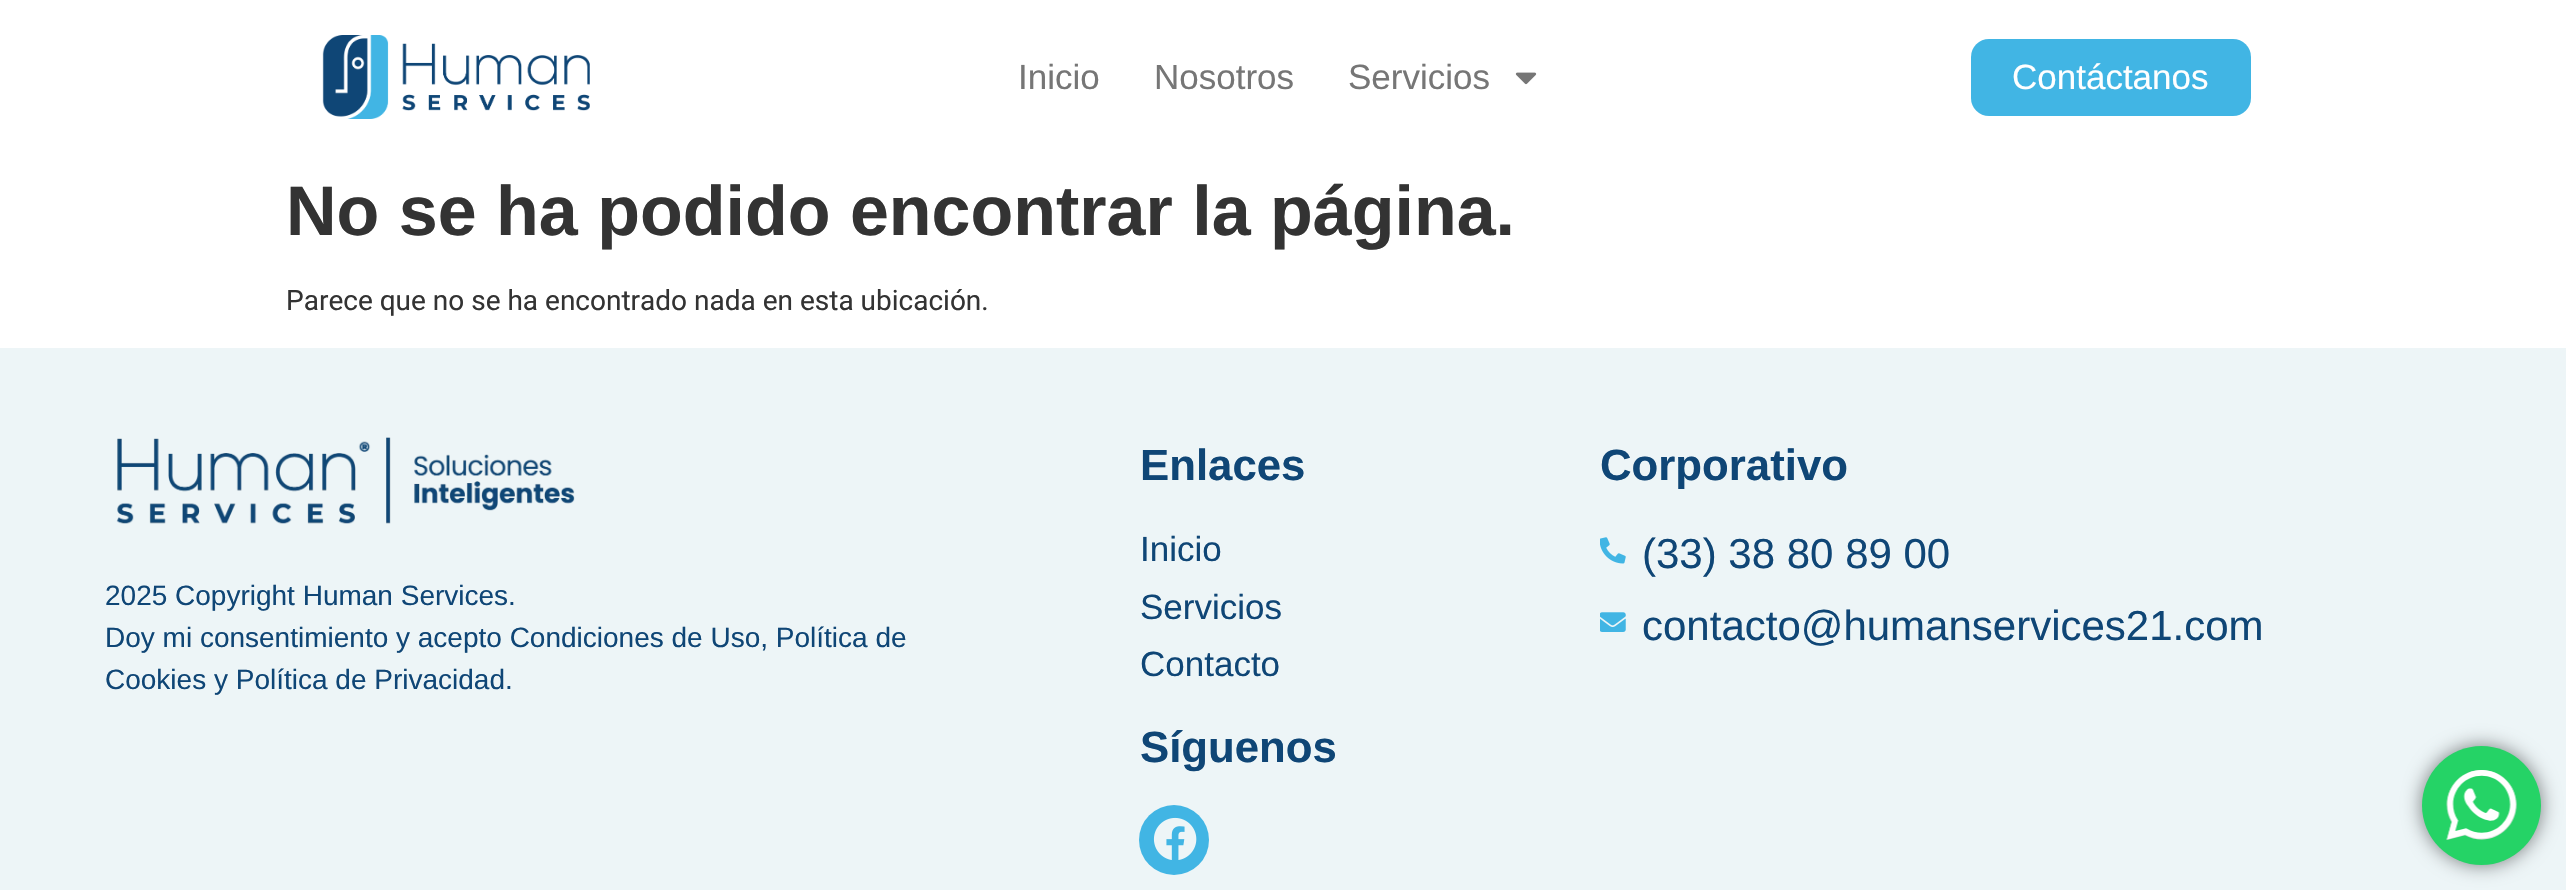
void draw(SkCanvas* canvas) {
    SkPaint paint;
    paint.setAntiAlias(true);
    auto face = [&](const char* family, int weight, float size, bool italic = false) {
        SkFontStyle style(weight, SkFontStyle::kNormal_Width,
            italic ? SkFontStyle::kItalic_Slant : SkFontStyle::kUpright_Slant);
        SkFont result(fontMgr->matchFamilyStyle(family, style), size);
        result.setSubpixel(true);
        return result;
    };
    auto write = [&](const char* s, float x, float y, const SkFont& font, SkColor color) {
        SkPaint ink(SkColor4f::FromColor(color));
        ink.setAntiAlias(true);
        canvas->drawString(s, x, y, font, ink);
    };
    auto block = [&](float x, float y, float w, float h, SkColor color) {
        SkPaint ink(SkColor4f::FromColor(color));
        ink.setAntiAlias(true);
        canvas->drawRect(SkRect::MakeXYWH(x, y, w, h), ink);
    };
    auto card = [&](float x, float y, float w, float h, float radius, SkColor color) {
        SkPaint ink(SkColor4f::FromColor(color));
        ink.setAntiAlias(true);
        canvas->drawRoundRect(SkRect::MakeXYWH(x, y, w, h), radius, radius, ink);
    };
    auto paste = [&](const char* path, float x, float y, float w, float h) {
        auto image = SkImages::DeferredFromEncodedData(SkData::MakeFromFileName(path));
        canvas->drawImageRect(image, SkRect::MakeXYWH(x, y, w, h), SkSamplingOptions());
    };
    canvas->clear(SK_ColorWHITE);
    paste("pic1.png", 322, 35, 268, 84);
    auto kFont1 = face("Liberation Sans", 400, 35);
    write("Inicio", 1018, 89, kFont1, SkColorSetRGB(118, 118, 118));
    write("Nosotros", 1154, 89, kFont1, SkColorSetRGB(118, 118, 118));
    write("Servicios", 1348, 89, kFont1, SkColorSetRGB(118, 118, 118));
    paste("pic2.png", 1515, 72, 22, 13);
    card(1971, 39, 280, 77, 18, SkColorSetRGB(65, 181, 228));
    write("Contáctanos", 2012, 89, kFont1, SK_ColorWHITE);
    auto kFont2 = face("Liberation Sans", 700, 70);
    write("No se ha podido encontrar la página.", 286, 235, kFont2, SkColorSetRGB(51, 51, 51));
    auto kFont3 = face("Roboto", 400, 28);
    write("Parece que no se ha encontrado nada en esta ubicación.", 286, 310, kFont3, SkColorSetRGB(51, 51, 51));
    block(0, 348, 2566, 542, SkColorSetRGB(237, 245, 247));
    paste("pic3.png", 116, 437, 459, 87);
    auto kFont4 = face("Liberation Sans", 400, 28);
    write("2025 Copyright Human Services.", 105, 605, kFont4, SkColorSetRGB(15, 70, 118));
    write("Doy mi consentimiento y acepto Condiciones de Uso, Política de", 105, 647, kFont4, SkColorSetRGB(15, 70, 118));
    write("Cookies y Política de Privacidad.", 105, 689, kFont4, SkColorSetRGB(15, 70, 118));
    auto kFont5 = face("Liberation Sans", 700, 43.75f);
    write("Enlaces", 1140, 480, kFont5, SkColorSetRGB(15, 70, 118));
    write("Inicio", 1140, 561, kFont1, SkColorSetRGB(15, 70, 118));
    write("Servicios", 1140, 619, kFont1, SkColorSetRGB(15, 70, 118));
    write("Contacto", 1140, 676, kFont1, SkColorSetRGB(15, 70, 118));
    write("Síguenos", 1140, 762, kFont5, SkColorSetRGB(15, 70, 118));
    paint.setColor(SkColorSetRGB(65, 181, 228));
    canvas->drawCircle(1174, 840, 35, paint);
    paste("pic4.png", 1153, 817, 44, 43);
    write("Corporativo", 1600, 480, kFont5, SkColorSetRGB(15, 70, 118));
    paste("pic5.png", 1600, 537, 26, 27);
    auto kFont6 = face("Liberation Sans", 400, 42);
    write("(33) 38 80 89 00", 1642, 568, kFont6, SkColorSetRGB(15, 70, 118));
    paste("pic6.png", 1600, 612, 26, 20);
    write("contacto@humanservices21.com", 1642, 640, kFont6, SkColorSetRGB(15, 70, 118));
    paint.setColor(SkColorSetARGB(128, 0, 0, 0));
    paint.setMaskFilter(SkMaskFilter::MakeBlur(kNormal_SkBlurStyle, 9.5f));
    canvas->drawRoundRect(SkRect::MakeXYWH(2422, 746, 119, 119), 59.5f, 59.5f, paint);
    paint.setMaskFilter(nullptr);
    paint.setColor(SkColorSetRGB(37, 211, 102));
    canvas->drawCircle(2481.5f, 805.5f, 59.5f, paint);
    paste("pic7.png", 2446, 770, 71, 70);
}
